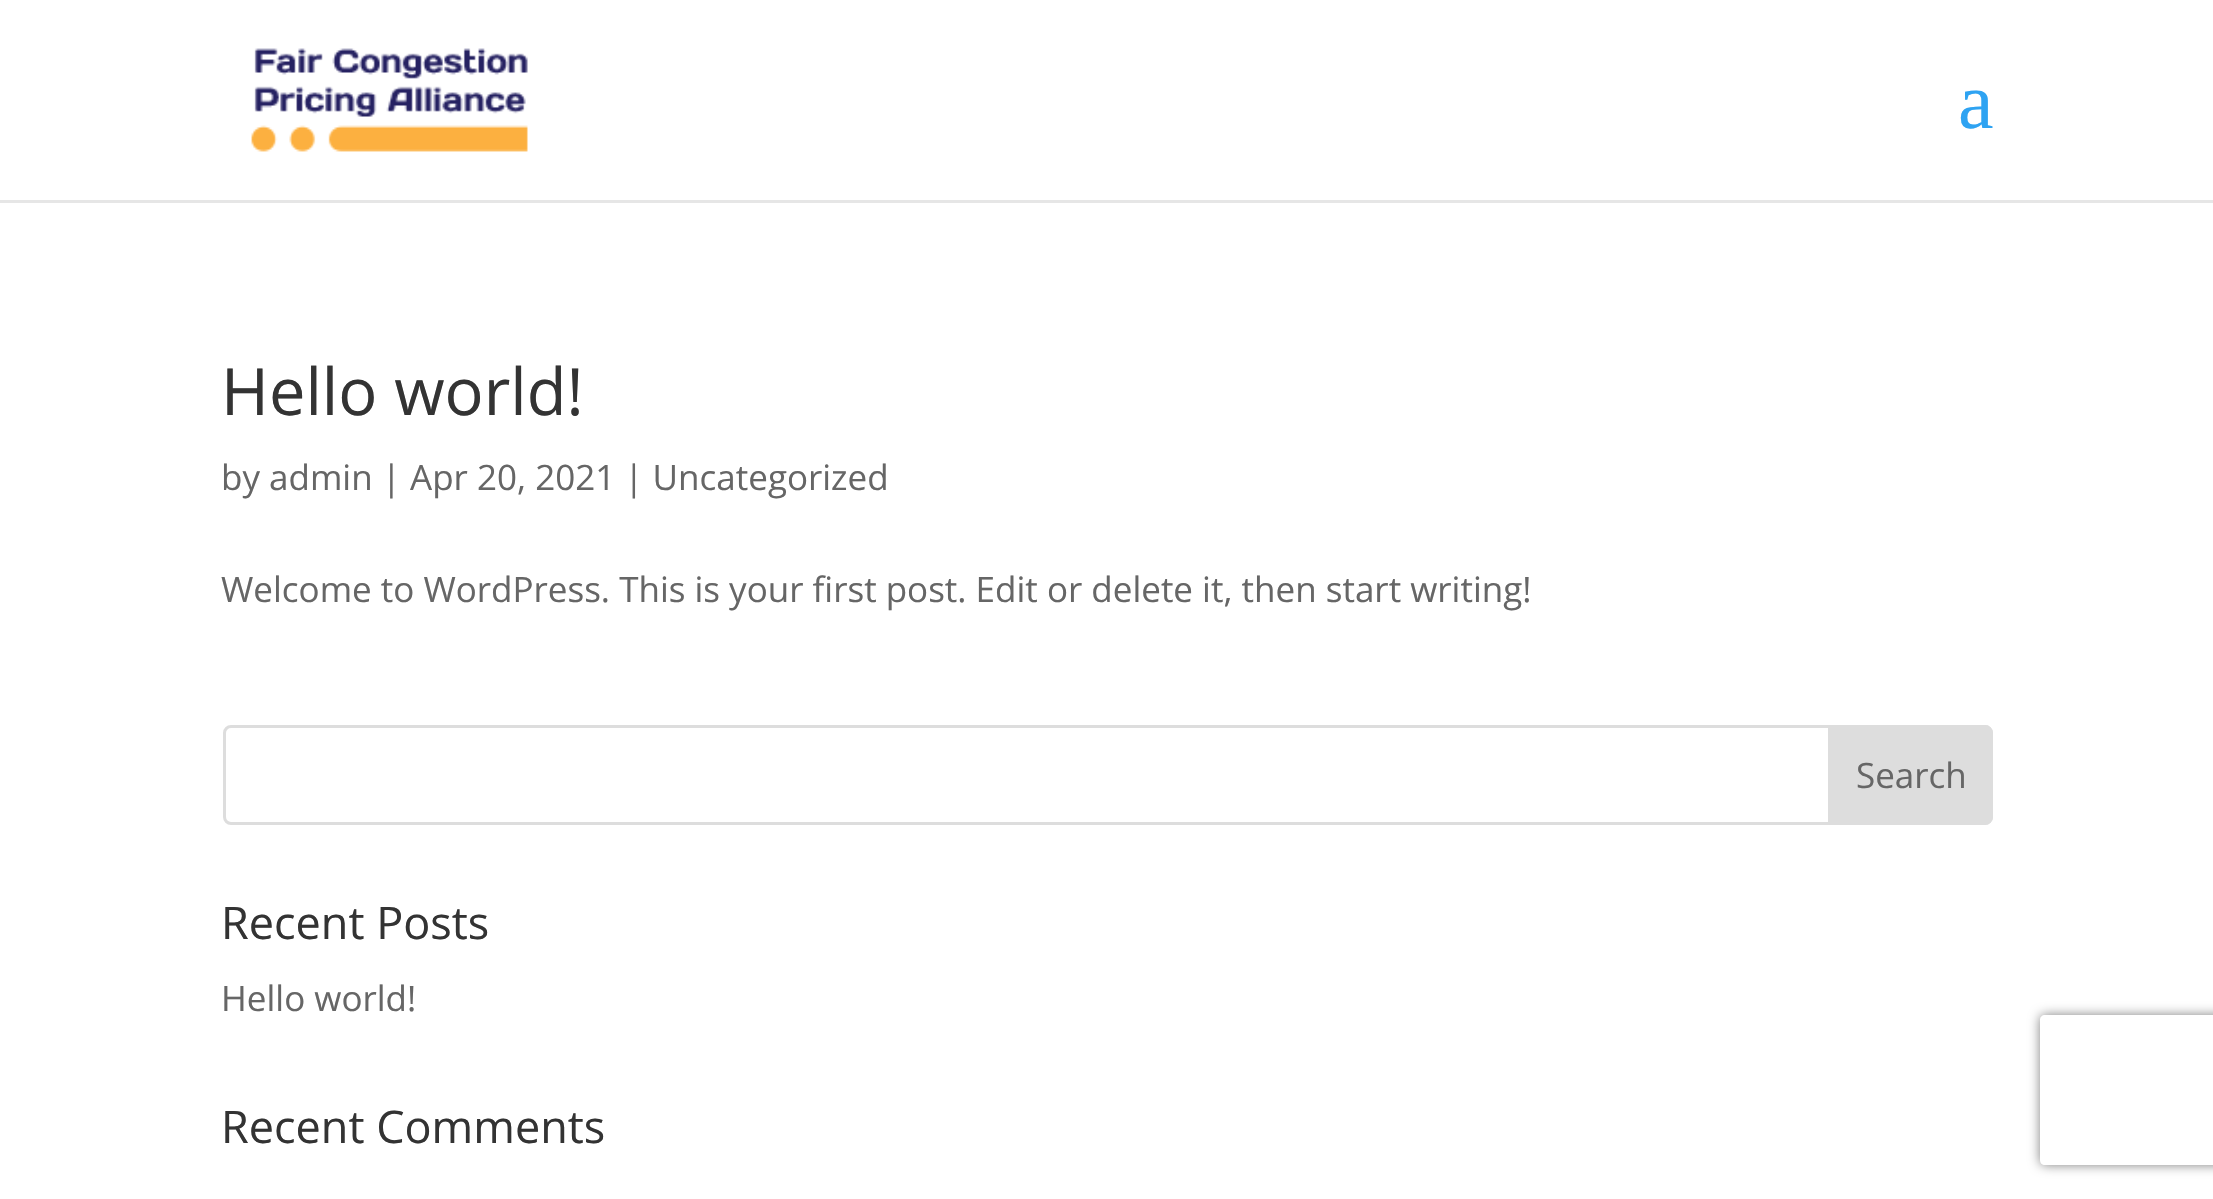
void draw(SkCanvas* canvas) {
    SkPaint paint;
    paint.setAntiAlias(true);
    auto face = [&](const char* family, int weight, float size, bool italic = false) {
        SkFontStyle style(weight, SkFontStyle::kNormal_Width,
            italic ? SkFontStyle::kItalic_Slant : SkFontStyle::kUpright_Slant);
        SkFont result(fontMgr->matchFamilyStyle(family, style), size);
        result.setSubpixel(true);
        return result;
    };
    auto write = [&](const char* s, float x, float y, const SkFont& font, SkColor color) {
        SkPaint ink(SkColor4f::FromColor(color));
        ink.setAntiAlias(true);
        canvas->drawString(s, x, y, font, ink);
    };
    auto block = [&](float x, float y, float w, float h, SkColor color) {
        SkPaint ink(SkColor4f::FromColor(color));
        ink.setAntiAlias(true);
        canvas->drawRect(SkRect::MakeXYWH(x, y, w, h), ink);
    };
    auto paste = [&](const char* path, float x, float y, float w, float h) {
        auto image = SkImages::DeferredFromEncodedData(SkData::MakeFromFileName(path));
        canvas->drawImageRect(image, SkRect::MakeXYWH(x, y, w, h), SkSamplingOptions());
    };
    canvas->clear(SK_ColorWHITE);
    block(0, 200, 2213, 3, SkColorSetRGB(230, 230, 230));
    paste("pic1.png", 251, 48, 277, 104);
    auto kFont1 = face("Liberation Serif", 400, 80);
    write("a", 1958, 128, kFont1, SkColorSetRGB(46, 163, 242));
    auto kFont2 = face("Open Sans", 400, 65);
    write("Hello world!", 221, 415, kFont2, SkColorSetRGB(51, 51, 51));
    auto kFont3 = face("Open Sans", 400, 35);
    write("by admin | Apr 20, 2021 | Uncategorized", 221, 490, kFont3, SkColorSetRGB(102, 102, 102));
    write("Welcome to WordPress. This is your first post. Edit or delete it, then start writing!", 221, 602, kFont3, SkColorSetRGB(102, 102, 102));
    paint.setStyle(SkPaint::kStroke_Style);
    paint.setStrokeWidth(3);
    paint.setColor(SkColorSetRGB(221, 221, 221));
    canvas->drawRoundRect(SkRect::MakeXYWH(224.5f, 726.5f, 1767, 97), 6.5f, 6.5f, paint);
    paint.setStyle(SkPaint::kFill_Style);
    canvas->drawPath(SkPathBuilder().moveTo(1829.5f, 726.5f).lineTo(1985, 726.5f).cubicTo(1988.5f, 726.5f, 1991.5f, 729.5f, 1991.5f, 733).lineTo(1991.5f, 817).cubicTo(1991.5f, 820.5f, 1988.5f, 823.5f, 1985, 823.5f).lineTo(1829.5f, 823.5f).close().detach(), paint);
    paint.setStyle(SkPaint::kStroke_Style);
    canvas->drawPath(SkPathBuilder().moveTo(1829.5f, 726.5f).lineTo(1985, 726.5f).cubicTo(1988.5f, 726.5f, 1991.5f, 729.5f, 1991.5f, 733).lineTo(1991.5f, 817).cubicTo(1991.5f, 820.5f, 1988.5f, 823.5f, 1985, 823.5f).lineTo(1829.5f, 823.5f).close().detach(), paint);
    write("Search", 1856, 788, kFont3, SkColorSetRGB(102, 102, 102));
    auto kFont4 = face("Open Sans", 400, 45);
    write("Recent Posts", 221, 939, kFont4, SkColorSetRGB(51, 51, 51));
    write("Hello world!", 221, 1011, kFont3, SkColorSetRGB(102, 102, 102));
    write("Recent Comments", 221, 1143, kFont4, SkColorSetRGB(51, 51, 51));
    canvas->save();
    canvas->clipPath(SkPathBuilder(SkPathFillType::kEvenOdd).moveTo(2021, 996).lineTo(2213, 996).lineTo(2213, 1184).lineTo(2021, 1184).close().moveTo(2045, 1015).lineTo(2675, 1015).cubicTo(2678, 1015, 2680, 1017, 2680, 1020).lineTo(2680, 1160).cubicTo(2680, 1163, 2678, 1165, 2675, 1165).lineTo(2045, 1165).cubicTo(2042, 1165, 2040, 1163, 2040, 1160).lineTo(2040, 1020).cubicTo(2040, 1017, 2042, 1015, 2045, 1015).close().detach(), true);
    paint.setStyle(SkPaint::kFill_Style);
    paint.setColor(SkColorSetRGB(128, 128, 128));
    paint.setMaskFilter(SkMaskFilter::MakeBlur(kNormal_SkBlurStyle, 6));
    canvas->drawRoundRect(SkRect::MakeXYWH(2040, 1015, 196, 150), 5, 5, paint);
    paint.setMaskFilter(nullptr);
    canvas->restore();
}
